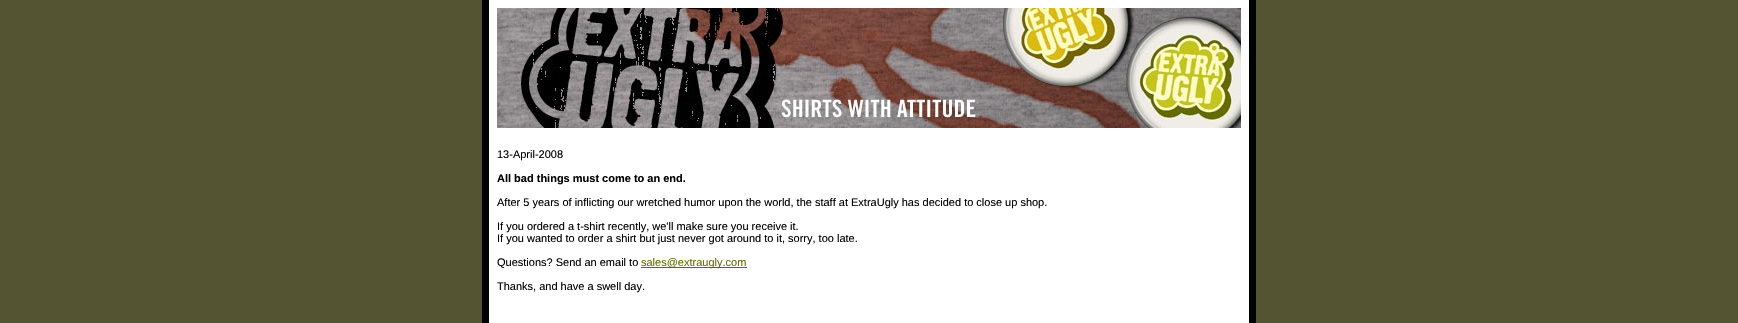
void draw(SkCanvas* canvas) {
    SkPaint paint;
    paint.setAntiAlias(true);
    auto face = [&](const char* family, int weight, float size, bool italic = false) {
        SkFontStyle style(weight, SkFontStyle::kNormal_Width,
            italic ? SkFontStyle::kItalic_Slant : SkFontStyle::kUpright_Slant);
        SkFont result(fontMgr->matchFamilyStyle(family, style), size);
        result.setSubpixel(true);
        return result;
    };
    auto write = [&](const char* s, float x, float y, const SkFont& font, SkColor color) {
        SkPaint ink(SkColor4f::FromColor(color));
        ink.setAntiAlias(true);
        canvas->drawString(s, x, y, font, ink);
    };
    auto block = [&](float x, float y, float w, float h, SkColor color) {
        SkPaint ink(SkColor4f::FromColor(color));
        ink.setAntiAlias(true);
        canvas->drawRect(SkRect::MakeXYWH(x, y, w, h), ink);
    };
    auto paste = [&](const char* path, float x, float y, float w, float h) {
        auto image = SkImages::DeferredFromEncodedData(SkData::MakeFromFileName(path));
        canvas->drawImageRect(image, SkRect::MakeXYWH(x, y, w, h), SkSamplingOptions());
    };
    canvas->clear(SkColorSetRGB(84, 84, 50));
    block(489, 0, 760, 323, SK_ColorWHITE);
    block(1249, 0, 7, 323, SK_ColorBLACK);
    block(482, 0, 7, 323, SK_ColorBLACK);
    paste("pic1.png", 497, 8, 744, 120);
    auto kFont1 = face("Liberation Sans", 400, 11);
    write("13-April-2008", 497, 158, kFont1, SK_ColorBLACK);
    auto kFont2 = face("Liberation Sans", 700, 11);
    write("All bad things must come to an end.", 497, 182, kFont2, SK_ColorBLACK);
    write("After 5 years of inflicting our wretched humor upon the world, the staff at ExtraUgly has decided to close up shop.", 497, 206, kFont1, SK_ColorBLACK);
    write("If you ordered a t-shirt recently, we'll make sure you receive it.", 497, 230, kFont1, SK_ColorBLACK);
    write("If you wanted to order a shirt but just never got around to it, sorry, too late.", 497, 242, kFont1, SK_ColorBLACK);
    write("Questions? Send an email to", 497, 266, kFont1, SK_ColorBLACK);
    block(641, 267, 106, 1, SkColorSetRGB(102, 107, 0));
    write("sales@extraugly.com", 641, 266, kFont1, SkColorSetRGB(102, 107, 0));
    write("Thanks, and have a swell day.", 497, 290, kFont1, SK_ColorBLACK);
}
